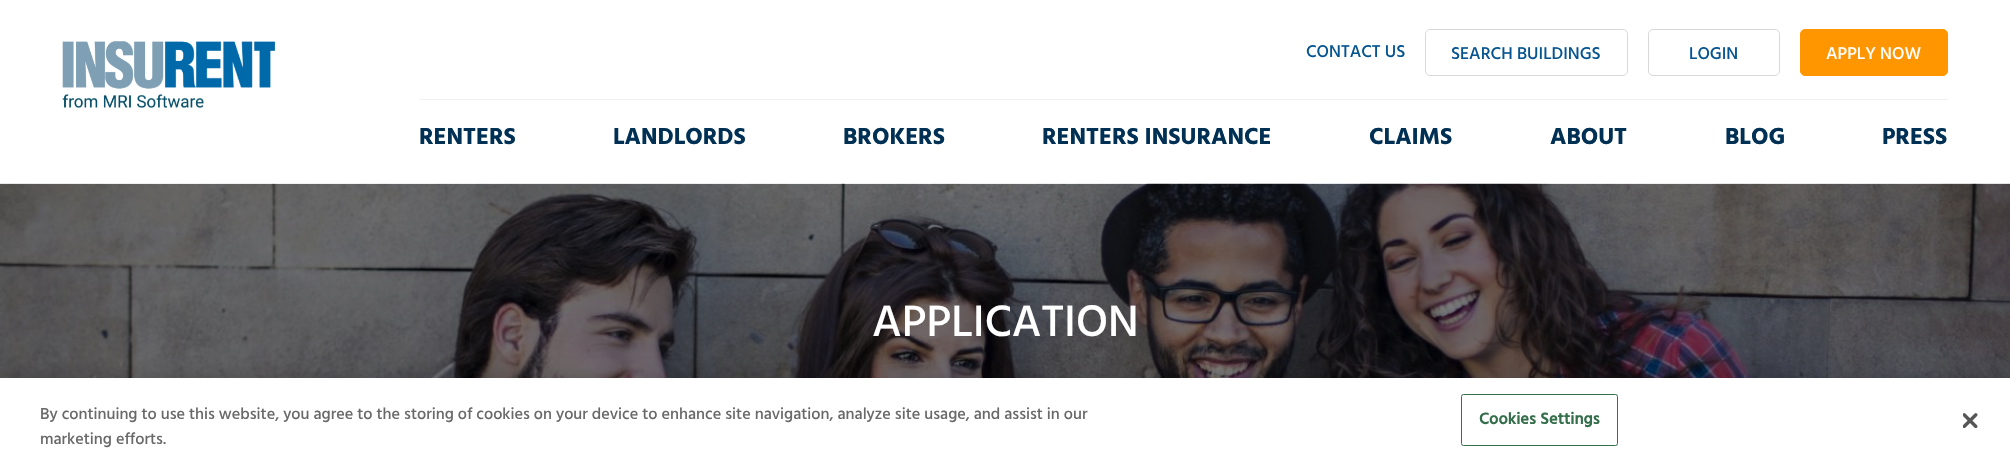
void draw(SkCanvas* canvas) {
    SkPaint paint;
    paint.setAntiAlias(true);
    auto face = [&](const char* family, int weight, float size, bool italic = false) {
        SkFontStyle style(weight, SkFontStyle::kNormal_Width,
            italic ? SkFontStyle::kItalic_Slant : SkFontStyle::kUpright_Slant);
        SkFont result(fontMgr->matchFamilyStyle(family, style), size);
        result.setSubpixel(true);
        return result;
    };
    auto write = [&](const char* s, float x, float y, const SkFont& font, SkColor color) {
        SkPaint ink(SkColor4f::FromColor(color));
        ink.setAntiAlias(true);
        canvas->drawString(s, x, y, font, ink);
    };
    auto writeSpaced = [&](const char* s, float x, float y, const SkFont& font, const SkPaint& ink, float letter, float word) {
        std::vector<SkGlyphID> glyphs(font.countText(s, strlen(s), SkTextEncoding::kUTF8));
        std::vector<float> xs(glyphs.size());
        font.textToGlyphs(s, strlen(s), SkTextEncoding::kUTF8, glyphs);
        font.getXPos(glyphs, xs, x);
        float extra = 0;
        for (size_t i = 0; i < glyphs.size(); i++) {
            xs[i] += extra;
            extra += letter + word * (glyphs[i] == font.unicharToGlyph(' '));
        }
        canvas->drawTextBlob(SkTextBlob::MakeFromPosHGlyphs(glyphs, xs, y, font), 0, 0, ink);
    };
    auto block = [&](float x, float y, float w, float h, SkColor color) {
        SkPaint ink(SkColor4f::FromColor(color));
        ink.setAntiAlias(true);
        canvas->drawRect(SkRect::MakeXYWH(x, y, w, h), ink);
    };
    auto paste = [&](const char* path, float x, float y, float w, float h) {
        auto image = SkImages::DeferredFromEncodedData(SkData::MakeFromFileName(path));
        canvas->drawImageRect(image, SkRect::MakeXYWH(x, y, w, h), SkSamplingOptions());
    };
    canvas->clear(SK_ColorWHITE);
    paste("pic1.png", 62, 41, 213, 67);
    block(419, 99, 1529, 1, SkColorSetRGB(240, 240, 240));
    auto kFont1 = face("Hind", 500, 17.5f);
    write("CONTACT US", 1306, 57, kFont1, SkColorSetRGB(6, 85, 144));
    paint.setStyle(SkPaint::kStroke_Style);
    paint.setStrokeWidth(1);
    paint.setColor(SkColorSetRGB(216, 216, 216));
    canvas->drawRoundRect(SkRect::MakeXYWH(1425.5f, 29.5f, 202, 46), 4.5f, 4.5f, paint);
    write("SEARCH BUILDINGS", 1451, 59, kFont1, SkColorSetRGB(6, 85, 144));
    canvas->drawRoundRect(SkRect::MakeXYWH(1648.5f, 29.5f, 131, 46), 4.5f, 4.5f, paint);
    write("LOGIN", 1689, 59, kFont1, SkColorSetRGB(6, 85, 144));
    paint.setStyle(SkPaint::kFill_Style);
    paint.setColor(SkColorSetRGB(255, 150, 0));
    canvas->drawRoundRect(SkRect::MakeXYWH(1800.5f, 29.5f, 147, 46), 4.5f, 4.5f, paint);
    paint.setStyle(SkPaint::kStroke_Style);
    canvas->drawRoundRect(SkRect::MakeXYWH(1800.5f, 29.5f, 147, 46), 4.5f, 4.5f, paint);
    write("APPLY NOW", 1826, 59, kFont1, SK_ColorWHITE);
    auto kFont2 = face("Hind", 700, 23.75f);
    write("RENTERS", 419, 144, kFont2, SkColorSetRGB(0, 48, 83));
    write("LANDLORDS", 613, 144, kFont2, SkColorSetRGB(0, 48, 83));
    write("BROKERS", 843, 144, kFont2, SkColorSetRGB(0, 48, 83));
    write("RENTERS INSURANCE", 1042, 144, kFont2, SkColorSetRGB(0, 48, 83));
    write("CLAIMS", 1369, 144, kFont2, SkColorSetRGB(0, 48, 83));
    write("ABOUT", 1550, 144, kFont2, SkColorSetRGB(0, 48, 83));
    write("BLOG", 1725, 144, kFont2, SkColorSetRGB(0, 48, 83));
    write("PRESS", 1882, 144, kFont2, SkColorSetRGB(0, 48, 83));
    paste("pic2.png", 0, 183, 2010, 195);
    auto kFont3 = face("Hind", 500, 45);
    write("APPLICATION", 872, 336, kFont3, SK_ColorWHITE);
    paint.setStyle(SkPaint::kFill_Style);
    paint.setColor(SkColorSetARGB(51, 0, 0, 0));
    paint.setMaskFilter(SkMaskFilter::MakeBlur(kNormal_SkBlurStyle, 11));
    canvas->drawRect(SkRect::MakeXYWH(0, 378, 2010, 88), paint);
    paint.setMaskFilter(nullptr);
    block(0, 378, 2010, 88, SK_ColorWHITE);
    auto kFont4 = face("Hind", 500, 16.27f);
    write("By continuing to use this website, you agree to the storing of cookies on your device to enhance site navigation, analyze site usage, and assist in our", 40, 419, kFont4, SkColorSetRGB(105, 105, 105));
    write("marketing efforts.", 40, 444, kFont4, SkColorSetRGB(105, 105, 105));
    paint.setStyle(SkPaint::kStroke_Style);
    paint.setColor(SkColorSetRGB(52, 110, 74));
    canvas->drawRoundRect(SkRect::MakeXYWH(1461.5f, 394.5f, 156, 51), 2, 2, paint);
    auto kFont5 = face("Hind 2", 700, 16.27f);
    paint.setStyle(SkPaint::kFill_Style);
    writeSpaced("Cookies Settings", 1479, 424, kFont5, paint, 0.2f, 0);
    paste("pic3.png", 1963, 413, 15, 15);
}
